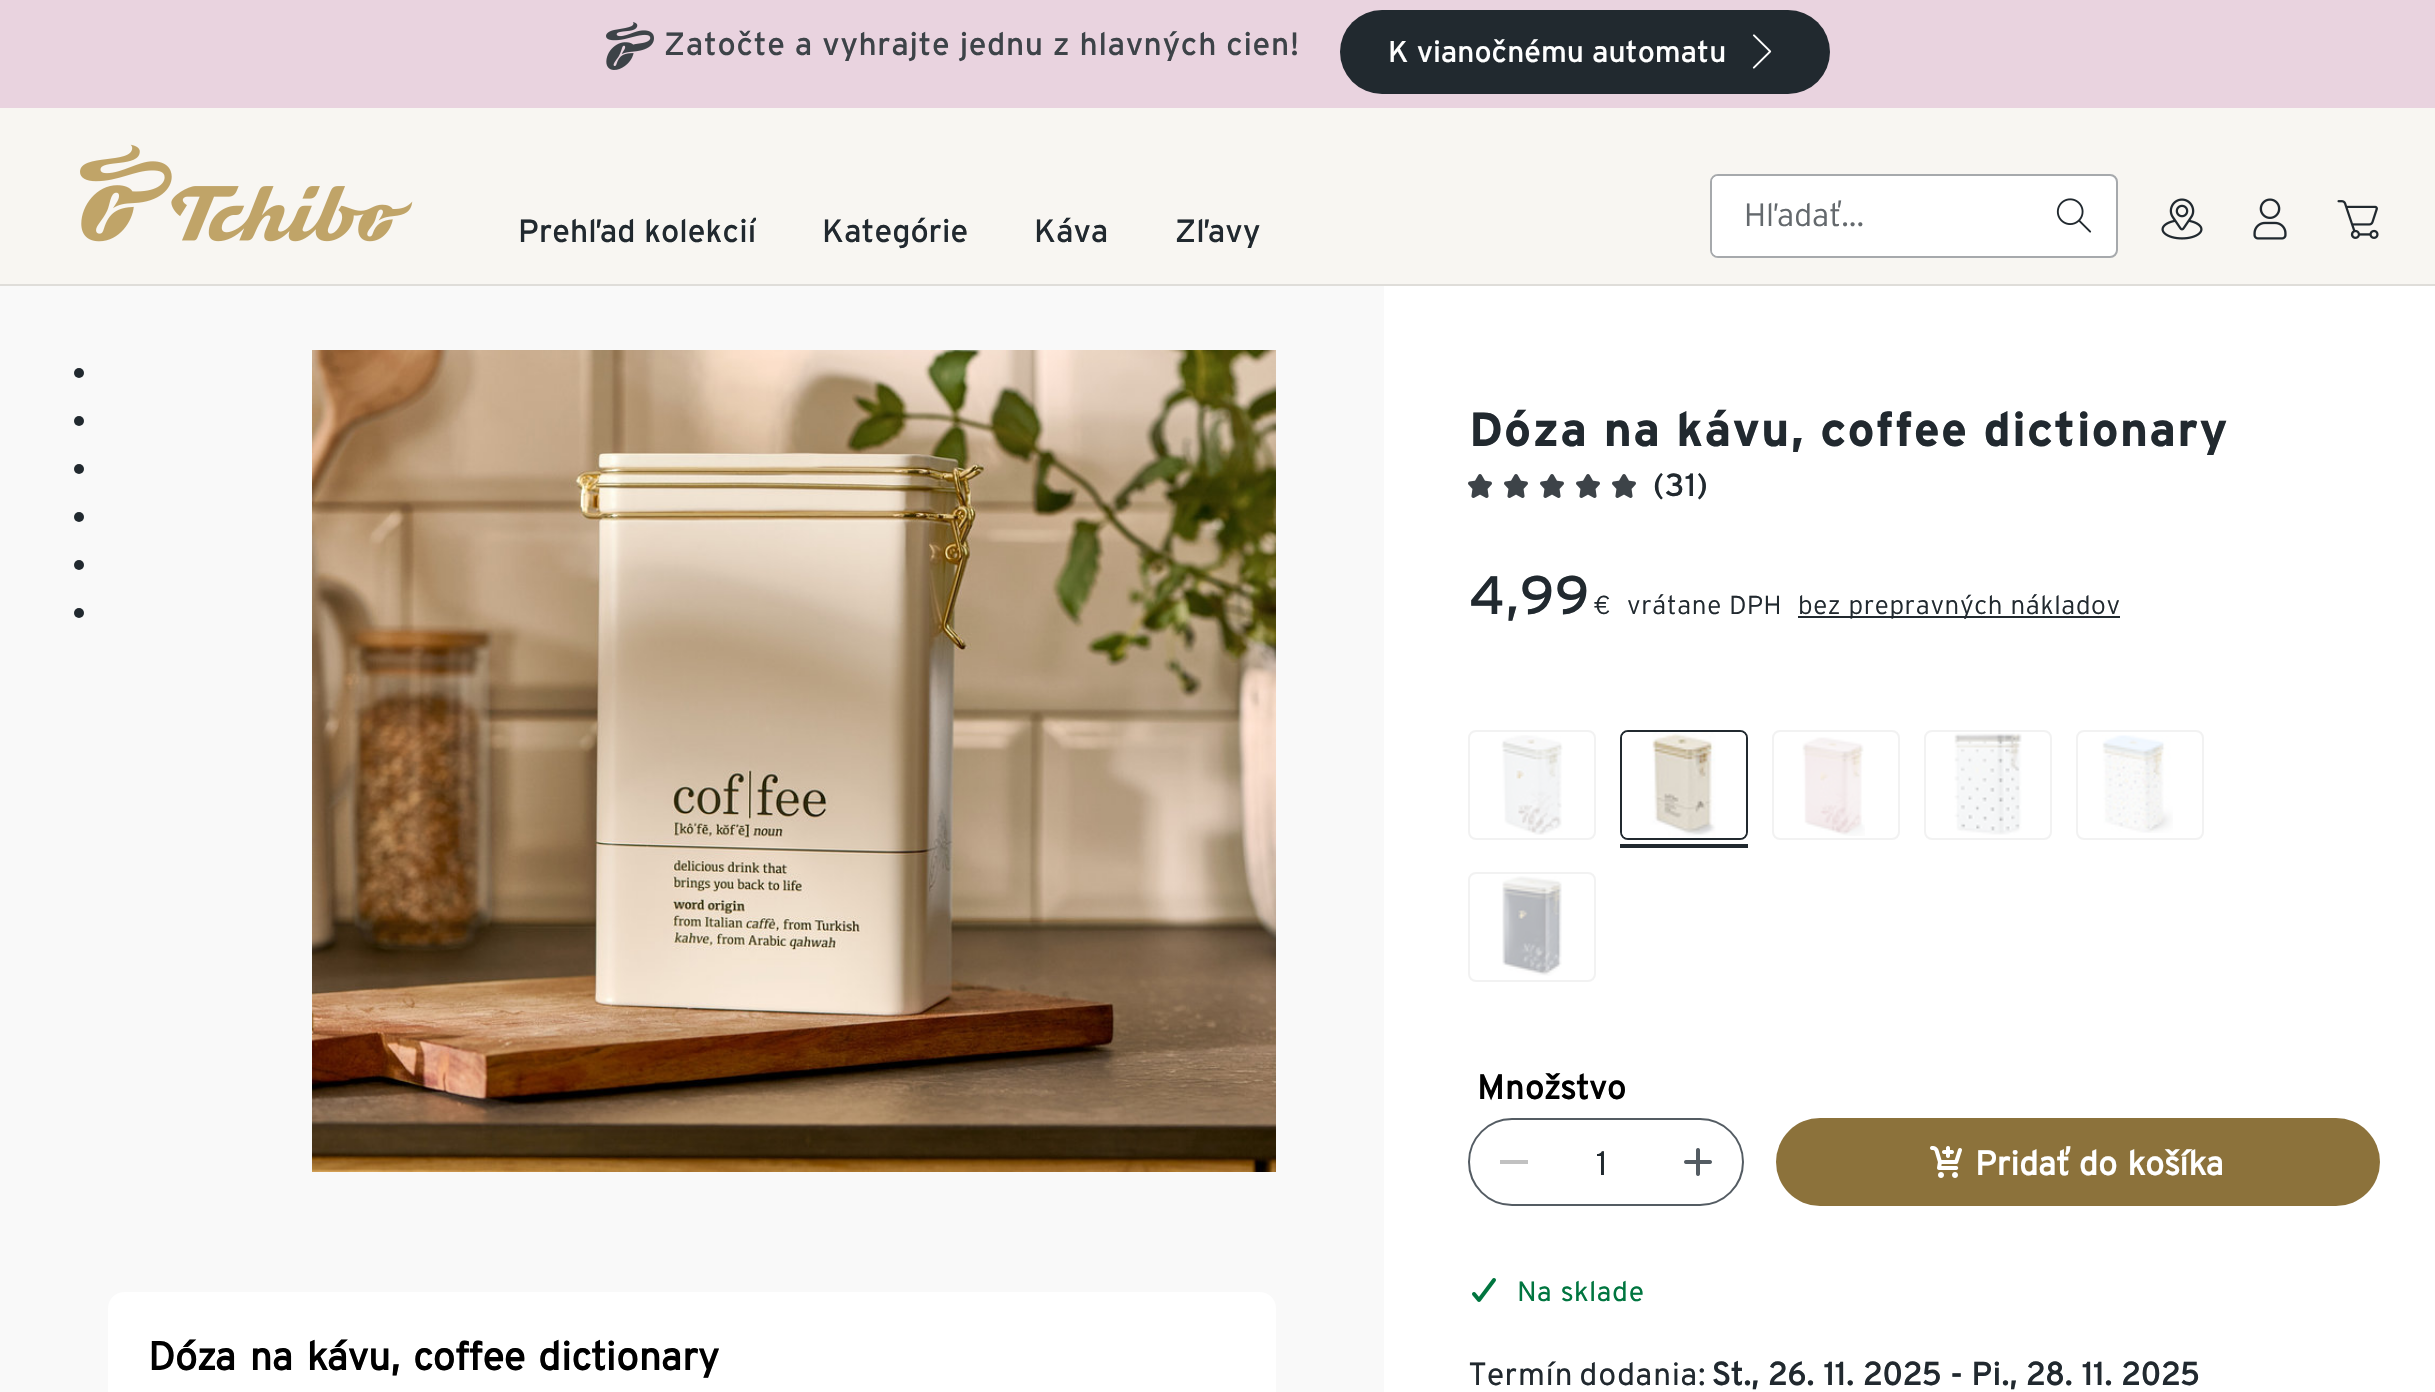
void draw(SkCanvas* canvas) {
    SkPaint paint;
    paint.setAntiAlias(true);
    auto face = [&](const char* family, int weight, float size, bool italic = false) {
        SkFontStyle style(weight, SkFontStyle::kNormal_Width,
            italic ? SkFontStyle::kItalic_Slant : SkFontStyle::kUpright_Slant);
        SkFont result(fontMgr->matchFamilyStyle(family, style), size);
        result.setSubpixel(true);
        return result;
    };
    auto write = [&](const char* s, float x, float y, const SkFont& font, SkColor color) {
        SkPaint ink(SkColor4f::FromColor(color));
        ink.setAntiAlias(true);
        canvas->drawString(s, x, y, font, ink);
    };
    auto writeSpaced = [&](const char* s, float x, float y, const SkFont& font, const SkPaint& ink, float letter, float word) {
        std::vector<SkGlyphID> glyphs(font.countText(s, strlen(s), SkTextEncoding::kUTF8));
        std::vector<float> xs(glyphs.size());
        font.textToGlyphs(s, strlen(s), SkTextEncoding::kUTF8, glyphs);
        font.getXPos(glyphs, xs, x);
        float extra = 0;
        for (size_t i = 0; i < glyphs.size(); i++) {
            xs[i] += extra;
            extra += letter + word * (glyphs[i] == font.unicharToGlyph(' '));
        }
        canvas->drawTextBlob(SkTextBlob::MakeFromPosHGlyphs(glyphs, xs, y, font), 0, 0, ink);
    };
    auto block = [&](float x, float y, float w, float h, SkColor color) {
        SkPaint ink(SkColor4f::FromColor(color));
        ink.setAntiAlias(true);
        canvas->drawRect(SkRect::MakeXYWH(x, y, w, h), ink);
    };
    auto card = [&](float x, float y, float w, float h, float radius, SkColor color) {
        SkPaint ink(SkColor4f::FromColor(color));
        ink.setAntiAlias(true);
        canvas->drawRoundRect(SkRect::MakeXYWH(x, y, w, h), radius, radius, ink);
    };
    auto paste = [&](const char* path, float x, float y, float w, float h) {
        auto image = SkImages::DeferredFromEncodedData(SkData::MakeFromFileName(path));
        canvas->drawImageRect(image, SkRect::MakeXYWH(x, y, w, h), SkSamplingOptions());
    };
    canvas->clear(SK_ColorWHITE);
    block(0, 108, 2435, 176, SkColorSetRGB(248, 246, 242));
    block(0, 0, 2435, 108, SkColorSetRGB(233, 211, 223));
    paste("pic1.png", 606, 22, 48, 48);
    auto kFont1 = face("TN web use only", 400, 32);
    paint.setColor(SkColorSetRGB(61, 67, 72));
    writeSpaced("Zatočte a vyhrajte jednu z hlavných cien!", 664, 55, kFont1, paint, 0.6f, 0);
    card(1340, 10, 490, 84, 42, SkColorSetRGB(33, 41, 47));
    auto kFont2 = face("TN web use only", 400, 30);
    write("K vianočnému automatu", 1388, 62, kFont2, SK_ColorWHITE);
    paste("pic2.png", 1752, 34, 20, 35);
    block(0, 284, 2435, 2, SkColorSetRGB(223, 221, 217));
    paste("pic3.png", 80, 144, 333, 98);
    paint.setColor(SK_ColorWHITE);
    canvas->drawRoundRect(SkRect::MakeXYWH(1711, 175, 406, 82), 7, 7, paint);
    paint.setStyle(SkPaint::kStroke_Style);
    paint.setStrokeWidth(2);
    paint.setColor(SkColorSetRGB(166, 169, 172));
    canvas->drawRoundRect(SkRect::MakeXYWH(1711, 175, 406, 82), 7, 7, paint);
    paint.setStyle(SkPaint::kFill_Style);
    paint.setColor(SK_ColorWHITE);
    canvas->drawPath(SkPathBuilder().moveTo(1718, 176).lineTo(2052, 176).lineTo(2052, 256).lineTo(1718, 256).cubicTo(1714.5f, 256, 1712, 253.5f, 1712, 250).lineTo(1712, 182).cubicTo(1712, 178.5f, 1714.5f, 176, 1718, 176).close().detach(), paint);
    auto kFont3 = face("TN web use only", 300, 32);
    write("Hľadať...", 1744, 226, kFont3, SkColorSetRGB(100, 105, 109));
    paste("pic4.png", 2056, 198, 36, 35);
    paste("pic5.png", 2161, 198, 42, 42);
    paste("pic6.png", 2253, 198, 34, 42);
    paste("pic7.png", 2337, 200, 42, 39);
    canvas->save();
    canvas->clipRect(SkRect::MakeXYWH(518, 216, 238, 68));
    write("Prehľad kolekcií", 518, 242, kFont1, SkColorSetRGB(33, 41, 47));
    canvas->restore();
    write("Kategórie", 822, 242, kFont1, SkColorSetRGB(33, 41, 47));
    write("Káva", 1034, 242, kFont1, SkColorSetRGB(33, 41, 47));
    write("Zľavy", 1175, 242, kFont1, SkColorSetRGB(33, 41, 47));
    block(0, 286, 1384, 1106, SkColorSetRGB(249, 249, 249));
    paint.setColor(SkColorSetRGB(33, 41, 47));
    canvas->drawCircle(79, 373, 5, paint);
    canvas->drawCircle(79, 421, 5, paint);
    canvas->drawCircle(79, 469, 5, paint);
    canvas->drawCircle(79, 517, 5, paint);
    canvas->drawCircle(79, 565, 5, paint);
    canvas->drawCircle(79, 613, 5, paint);
    paste("pic8.png", 312, 350, 964, 822);
    auto kFont4 = face("TN web use only", 700, 48);
    writeSpaced("Dóza na kávu, coffee dictionary", 1469, 446, kFont4, paint, 1.4f, 0);
    paste("pic9.png", 1468, 474, 24, 24);
    paste("pic9.png", 1504, 474, 24, 24);
    paste("pic9.png", 1540, 474, 24, 24);
    paste("pic9.png", 1576, 474, 24, 24);
    paste("pic9.png", 1612, 474, 24, 24);
    writeSpaced("(31)", 1653, 496, kFont1, paint, 0.6f, 0);
    auto kFont5 = face("TN web use only", 400, 54);
    writeSpaced("4,99", 1469, 614, kFont5, paint, 0.6f, 0);
    auto kFont6 = face("TN web use only", 300, 26);
    writeSpaced("€", 1594, 614, kFont6, paint, 0.6f, 0);
    writeSpaced("vrátane DPH", 1627, 614, kFont6, paint, 0.6f, 0);
    block(1798, 616, 322, 2, SkColorSetRGB(33, 41, 47));
    writeSpaced("bez prepravných nákladov", 1798, 614, kFont6, paint, 0.6f, 0);
    paint.setStyle(SkPaint::kStroke_Style);
    paint.setColor(SkColorSetRGB(242, 242, 242));
    canvas->drawRoundRect(SkRect::MakeXYWH(1469, 731, 126, 108), 7, 7, paint);
    paste("pic10.png", 1501, 735, 62, 100);
    block(1620, 844, 128, 4, SkColorSetRGB(33, 41, 47));
    paint.setColor(SkColorSetRGB(33, 41, 47));
    canvas->drawRoundRect(SkRect::MakeXYWH(1621, 731, 126, 108), 7, 7, paint);
    paste("pic11.png", 1622, 732, 124, 106);
    paint.setColor(SkColorSetRGB(242, 242, 242));
    canvas->drawRoundRect(SkRect::MakeXYWH(1773, 731, 126, 108), 7, 7, paint);
    paste("pic12.png", 1802, 737, 63, 99);
    canvas->drawRoundRect(SkRect::MakeXYWH(1925, 731, 126, 108), 7, 7, paint);
    paste("pic13.png", 1954, 733, 68, 102);
    canvas->drawRoundRect(SkRect::MakeXYWH(2077, 731, 126, 108), 7, 7, paint);
    paste("pic14.png", 2102, 735, 71, 98);
    canvas->drawRoundRect(SkRect::MakeXYWH(1469, 873, 126, 108), 7, 7, paint);
    paste("pic15.png", 1502, 876, 60, 100);
    auto kFont7 = face("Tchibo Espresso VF", 700, 34);
    paint.setStyle(SkPaint::kFill_Style);
    paint.setColor(SK_ColorBLACK);
    writeSpaced("Množstvo", 1477, 1099, kFont7, paint, 0.6f, 0);
    paint.setStyle(SkPaint::kStroke_Style);
    paint.setColor(SkColorSetRGB(84, 92, 99));
    canvas->drawRoundRect(SkRect::MakeXYWH(1469, 1119, 274, 86), 43, 43, paint);
    block(1500, 1160, 28, 4, SkColorSetRGB(193, 193, 193));
    auto kFont8 = face("Tchibo Espresso VF", 400, 34);
    write("1", 1596, 1175, kFont8, SkColorSetRGB(33, 41, 47));
    paste("pic16.png", 1684, 1148, 28, 28);
    card(1776, 1118, 604, 88, 44, SkColorSetRGB(140, 114, 59));
    paste("pic17.png", 1930, 1146, 32, 32);
    paint.setStyle(SkPaint::kFill_Style);
    paint.setColor(SK_ColorWHITE);
    writeSpaced("Pridať do košíka", 1975, 1175, kFont7, paint, 0, 2);
    paste("pic18.png", 1472, 1278, 24, 24);
    auto kFont9 = face("Tchibo Espresso VF", 400, 28);
    paint.setColor(SkColorSetRGB(0, 117, 63));
    writeSpaced("Na sklade", 1517, 1301, kFont9, paint, 0.6f, 1);
    auto kFont10 = face("Tchibo Espresso VF", 400, 32);
    paint.setColor(SkColorSetRGB(33, 41, 47));
    writeSpaced("Termín dodania:", 1469, 1385, kFont10, paint, 0.6f, -2);
    auto kFont11 = face("Tchibo Espresso VF", 700, 32);
    writeSpaced("St., 26. 11. 2025 - Pi., 28. 11. 2025", 1712, 1385, kFont11, paint, 0.6f, 1);
    card(108, 1292, 1168, 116, 16, SK_ColorWHITE);
    auto kFont12 = face("Tchibo Espresso VF", 700, 40);
    paint.setColor(SK_ColorBLACK);
    writeSpaced("Dóza na kávu, coffee dictionary", 148, 1370, kFont12, paint, 0, 4);
}
